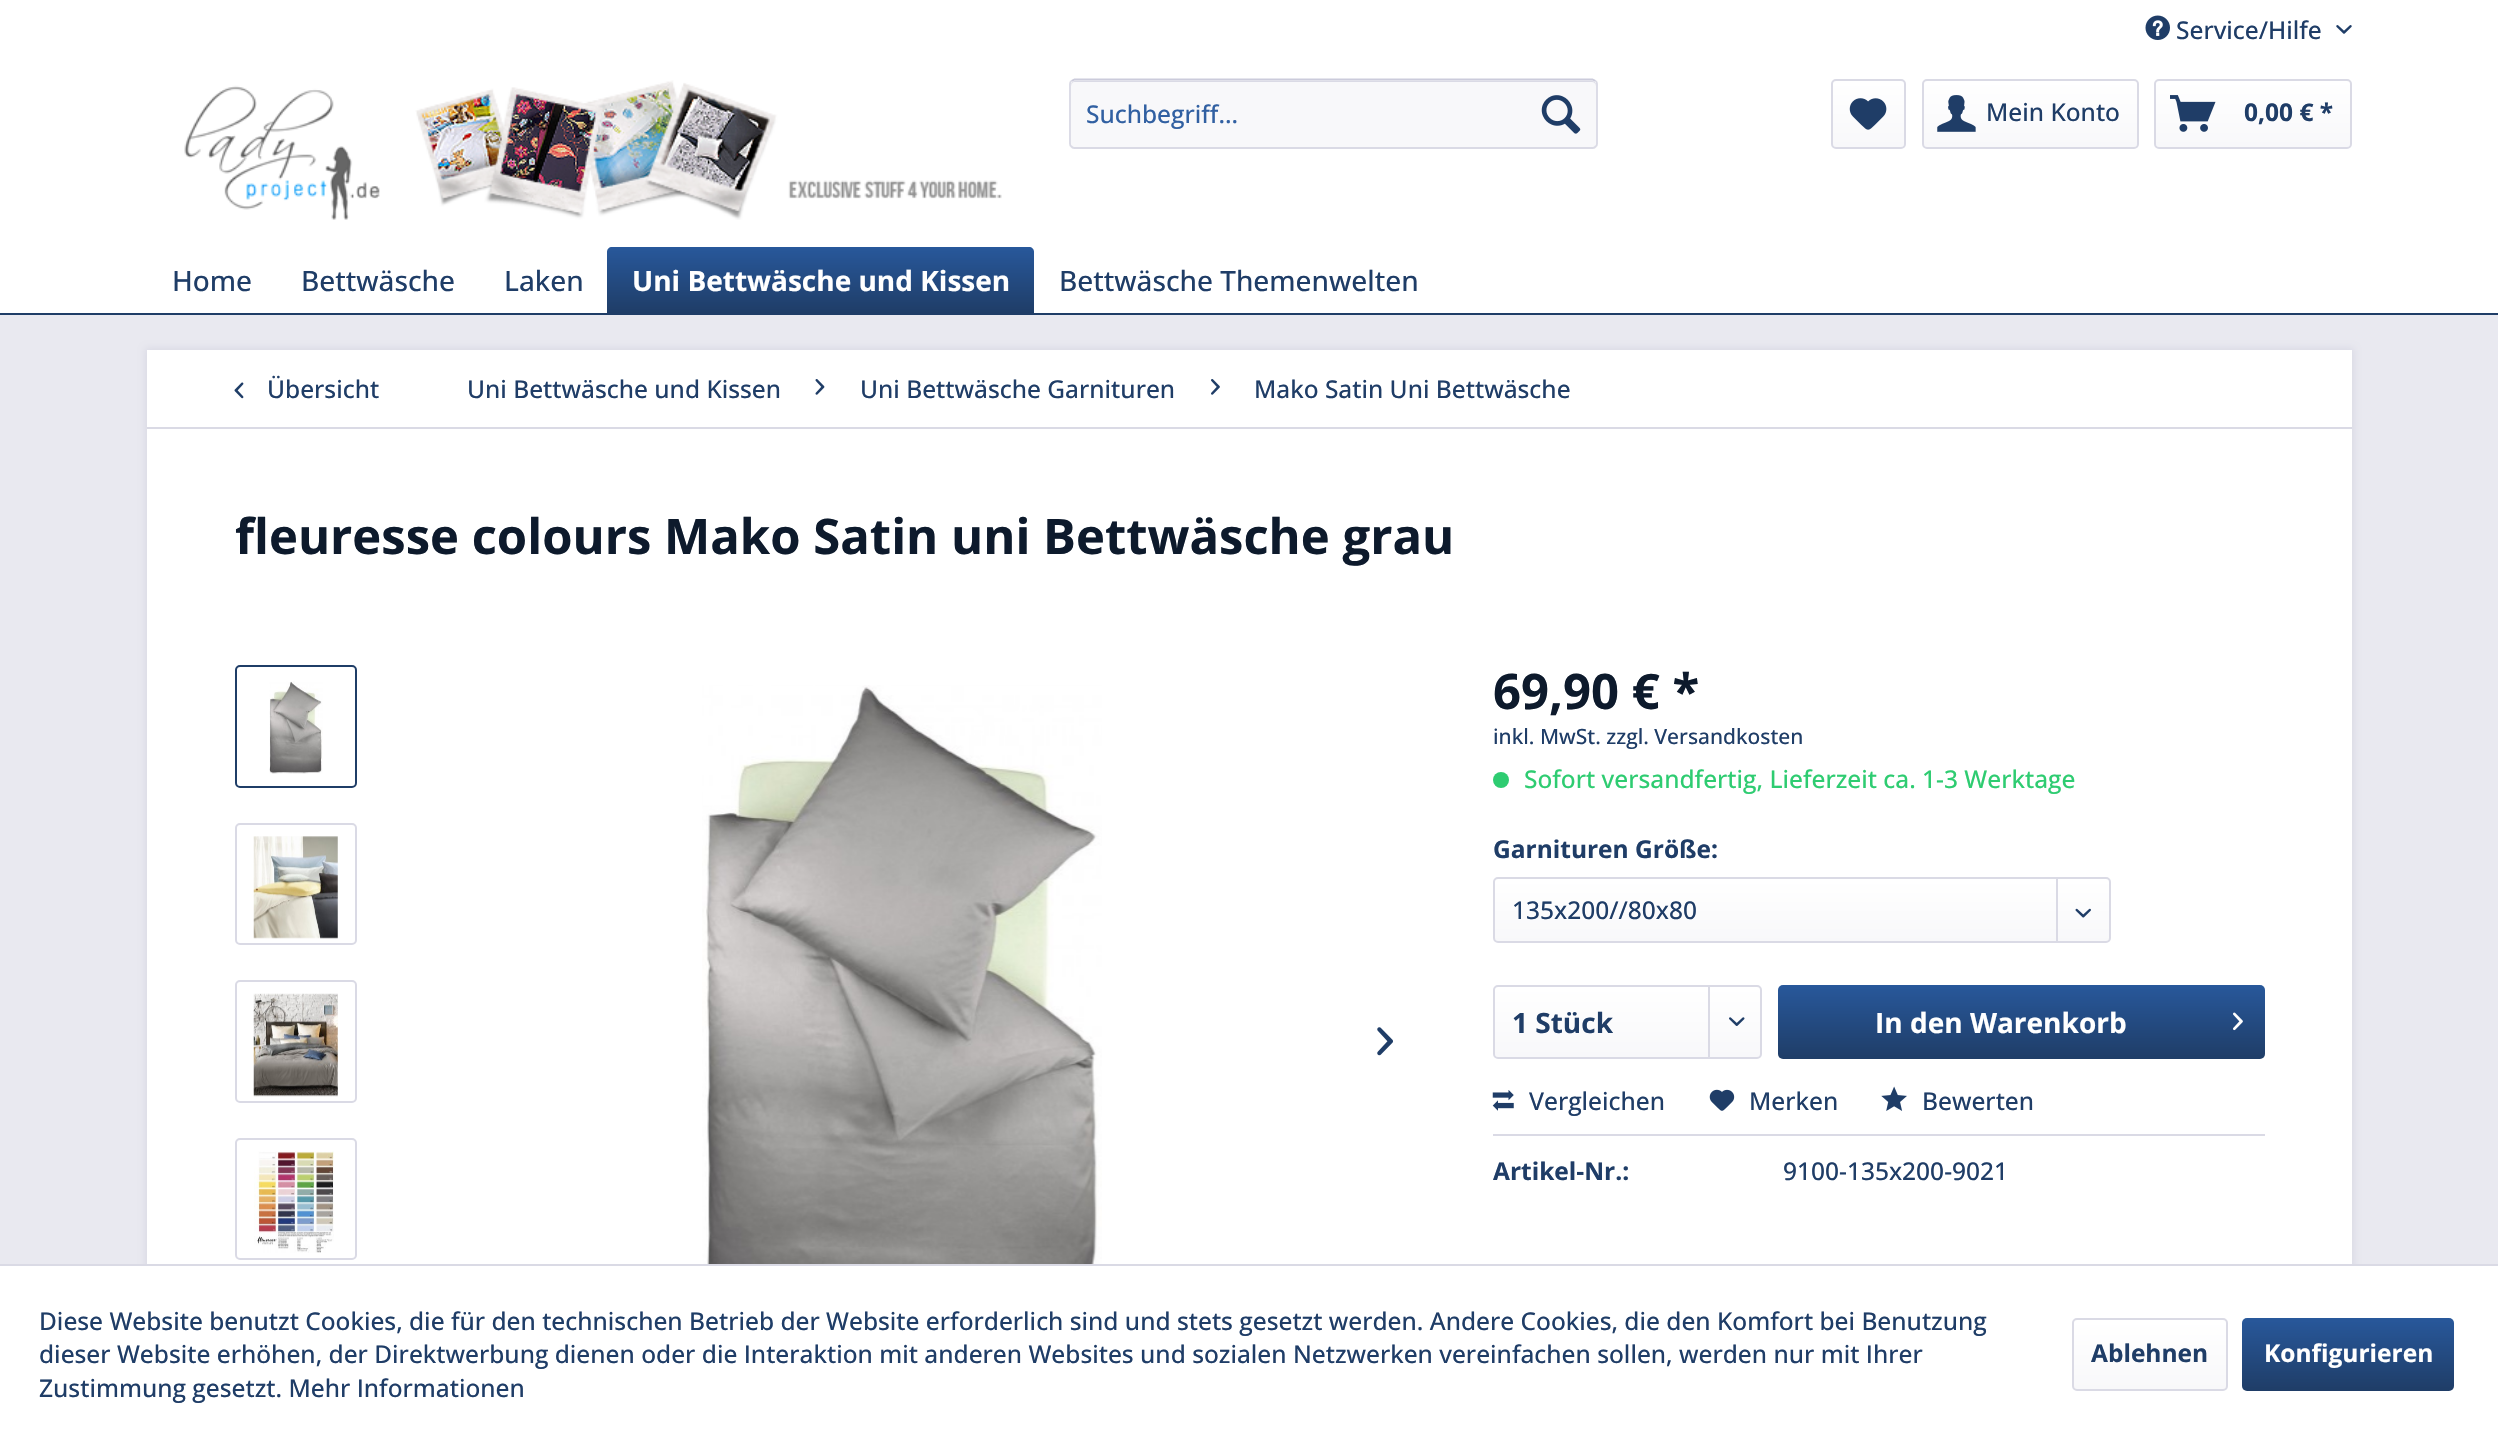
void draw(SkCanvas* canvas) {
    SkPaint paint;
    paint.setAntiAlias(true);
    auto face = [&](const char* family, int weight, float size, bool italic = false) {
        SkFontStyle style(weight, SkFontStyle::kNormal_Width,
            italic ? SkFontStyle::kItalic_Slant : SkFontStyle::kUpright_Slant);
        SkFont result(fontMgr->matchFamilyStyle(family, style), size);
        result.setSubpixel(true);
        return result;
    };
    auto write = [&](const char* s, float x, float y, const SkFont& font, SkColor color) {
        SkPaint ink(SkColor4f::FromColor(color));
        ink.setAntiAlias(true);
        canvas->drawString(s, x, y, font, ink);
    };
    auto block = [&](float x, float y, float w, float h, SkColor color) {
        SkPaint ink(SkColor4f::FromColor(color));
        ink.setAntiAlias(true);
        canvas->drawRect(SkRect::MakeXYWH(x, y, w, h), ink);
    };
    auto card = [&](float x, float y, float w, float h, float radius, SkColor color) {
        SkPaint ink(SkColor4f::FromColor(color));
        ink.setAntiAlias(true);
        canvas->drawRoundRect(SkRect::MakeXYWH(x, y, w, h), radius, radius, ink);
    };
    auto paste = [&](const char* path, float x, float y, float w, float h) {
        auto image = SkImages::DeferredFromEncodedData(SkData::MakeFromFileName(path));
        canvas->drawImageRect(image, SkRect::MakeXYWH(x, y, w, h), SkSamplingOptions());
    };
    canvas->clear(SkColorSetRGB(233, 233, 240));
    block(0, 0, 2498, 313, SK_ColorWHITE);
    paste("pic1.png", 2145, 15, 25, 25);
    auto kFont1 = face("Open Sans", 500, 24.5f);
    write("Service/Hilfe", 2176, 39, kFont1, SkColorSetRGB(31, 61, 103));
    paste("pic2.png", 2336, 25, 16, 9);
    paste("pic3.png", 184, 80, 818, 140);
    card(1069, 79, 529, 70, 5, SkColorSetRGB(248, 248, 250));
    paint.setColor(SkColorSetRGB(218, 218, 229));
    canvas->drawPath(SkPathBuilder().moveTo(1074, 82).lineTo(1592, 82).cubicTo(1594, 82, 1596, 84, 1596, 86).lineTo(1596, 85).cubicTo(1596, 83, 1594, 81, 1592, 81).lineTo(1075, 81).cubicTo(1073, 81, 1071, 83, 1071, 85).lineTo(1071, 86).cubicTo(1071, 84, 1073, 82, 1074, 82).close().detach(), paint);
    paint.setStyle(SkPaint::kStroke_Style);
    paint.setStrokeWidth(1.8f);
    paint.setColor(SkColorSetRGB(203, 203, 219));
    canvas->drawPath(SkPathBuilder().moveTo(1071.5f, 81).lineTo(1074.5f, 79.5f).lineTo(1592.5f, 79.5f).lineTo(1595.5f, 81).detach(), paint);
    paint.setColor(SkColorSetRGB(218, 218, 229));
    canvas->drawPath(SkPathBuilder().moveTo(1595.5f, 81).cubicTo(1596.5f, 81.5f, 1597, 83, 1597, 84).lineTo(1597, 143.5f).cubicTo(1597, 144.5f, 1596.5f, 146, 1595.5f, 146.5f).cubicTo(1595, 147.5f, 1593.5f, 148, 1592.5f, 148).lineTo(1074.5f, 148).cubicTo(1073.5f, 148, 1072, 147.5f, 1071.5f, 146.5f).cubicTo(1070.5f, 146, 1070, 144.5f, 1070, 143.5f).lineTo(1070, 84).cubicTo(1070, 83, 1070.5f, 81.5f, 1071.5f, 81).detach(), paint);
    write("Suchbegriff...", 1086, 123, kFont1, SkColorSetRGB(49, 96, 162));
    paste("pic4.png", 1541, 95, 40, 39);
    paint.setStyle(SkPaint::kFill_Style);
    {
        const SkColor colors[] = {SK_ColorWHITE, SkColorSetRGB(248, 248, 250)};
        const float stops[] = {0, 1};
        const SkPoint ends[] = {{1868, 81}, {1868, 147}};
        paint.setShader(SkGradientShader::MakeLinear(ends, colors, stops, 2, SkTileMode::kClamp));
        paint.setAlpha(255);
    }
    canvas->drawRoundRect(SkRect::MakeXYWH(1832, 81, 72, 66), 4, 4, paint);
    paint.setStyle(SkPaint::kStroke_Style);
    paint.setStrokeWidth(2);
    paint.setShader(nullptr);
    paint.setColor(SkColorSetRGB(218, 218, 229));
    canvas->drawRoundRect(SkRect::MakeXYWH(1832, 80, 73, 68), 4, 4, paint);
    paste("pic5.png", 1849, 98, 38, 32);
    paint.setStyle(SkPaint::kFill_Style);
    {
        const SkColor colors[] = {SK_ColorWHITE, SkColorSetRGB(248, 248, 250)};
        const float stops[] = {0, 1};
        const SkPoint ends[] = {{2030, 80}, {2030, 147}};
        paint.setShader(SkGradientShader::MakeLinear(ends, colors, stops, 2, SkTileMode::kClamp));
        paint.setAlpha(255);
    }
    canvas->drawRoundRect(SkRect::MakeXYWH(1923, 81, 214, 66), 4, 4, paint);
    paint.setStyle(SkPaint::kStroke_Style);
    paint.setShader(nullptr);
    paint.setColor(SkColorSetRGB(218, 218, 229));
    canvas->drawRoundRect(SkRect::MakeXYWH(1923, 80, 215, 68), 4, 4, paint);
    paste("pic6.png", 1937, 95, 39, 37);
    write("Mein Konto", 1986, 121, kFont1, SkColorSetRGB(31, 61, 103));
    paint.setStyle(SkPaint::kFill_Style);
    {
        const SkColor colors[] = {SK_ColorWHITE, SkColorSetRGB(248, 248, 250)};
        const float stops[] = {0, 1};
        const SkPoint ends[] = {{2253, 80}, {2253, 147}};
        paint.setShader(SkGradientShader::MakeLinear(ends, colors, stops, 2, SkTileMode::kClamp));
        paint.setAlpha(255);
    }
    canvas->drawRoundRect(SkRect::MakeXYWH(2156, 81, 194, 66), 4, 4, paint);
    paint.setStyle(SkPaint::kStroke_Style);
    paint.setShader(nullptr);
    paint.setColor(SkColorSetRGB(218, 218, 229));
    canvas->drawRoundRect(SkRect::MakeXYWH(2155, 80, 196, 68), 4, 4, paint);
    paste("pic7.png", 2170, 95, 46, 37);
    auto kFont2 = face("Open Sans", 700, 24.5f);
    write("0,00 € *", 2244, 121, kFont2, SkColorSetRGB(31, 61, 103));
    block(0, 313, 2498, 2, SkColorSetRGB(31, 61, 103));
    auto kFont3 = face("Open Sans", 500, 28);
    write("Home", 172, 291, kFont3, SkColorSetRGB(31, 61, 103));
    write("Bettwäsche", 301, 291, kFont3, SkColorSetRGB(31, 61, 103));
    write("Laken", 504, 291, kFont3, SkColorSetRGB(31, 61, 103));
    paint.setStyle(SkPaint::kFill_Style);
    {
        const SkColor colors[] = {SkColorSetRGB(40, 88, 155), SkColorSetRGB(31, 61, 103)};
        const float stops[] = {0, 1};
        const SkPoint ends[] = {{821, 247}, {821, 313}};
        paint.setShader(SkGradientShader::MakeLinear(ends, colors, stops, 2, SkTileMode::kClamp));
        paint.setAlpha(255);
    }
    canvas->drawPath(SkPathBuilder().moveTo(612, 247).lineTo(1029, 247).cubicTo(1032, 247, 1034, 249, 1034, 252).lineTo(1034, 313).lineTo(607, 313).lineTo(607, 252).cubicTo(607, 249, 609, 247, 612, 247).close().detach(), paint);
    auto kFont4 = face("Open Sans", 700, 28);
    write("Uni Bettwäsche und Kissen", 632, 291, kFont4, SK_ColorWHITE);
    write("Bettwäsche Themenwelten", 1059, 291, kFont3, SkColorSetRGB(31, 61, 103));
    paint.setShader(nullptr);
    paint.setColor(SkColorSetRGB(218, 218, 229));
    paint.setMaskFilter(SkMaskFilter::MakeBlur(kNormal_SkBlurStyle, 3.5f));
    canvas->drawRect(SkRect::MakeXYWH(145, 348, 2209, 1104), paint);
    paint.setMaskFilter(nullptr);
    block(147, 350, 2205, 914, SK_ColorWHITE);
    block(147, 427, 2205, 2, SkColorSetRGB(218, 218, 229));
    paste("pic8.png", 234, 382, 10, 17);
    write("Übersicht", 267, 398, kFont1, SkColorSetRGB(31, 61, 103));
    write("Uni Bettwäsche und Kissen", 467, 398, kFont1, SkColorSetRGB(31, 61, 103));
    paste("pic9.png", 815, 379, 10, 16);
    write("Uni Bettwäsche Garnituren", 860, 398, kFont1, SkColorSetRGB(31, 61, 103));
    paste("pic10.png", 1211, 379, 9, 16);
    write("Mako Satin Uni Bettwäsche", 1254, 398, kFont1, SkColorSetRGB(31, 61, 103));
    auto kFont5 = face("Open Sans", 700, 49);
    write("fleuresse colours Mako Satin uni Bettwäsche grau", 235, 554, kFont5, SkColorSetRGB(13, 26, 44));
    paint.setStyle(SkPaint::kStroke_Style);
    paint.setColor(SkColorSetRGB(31, 61, 103));
    canvas->drawRoundRect(SkRect::MakeXYWH(236, 666, 120, 121), 4, 4, paint);
    paste("pic11.png", 269, 681, 54, 93);
    paint.setColor(SkColorSetRGB(218, 218, 229));
    canvas->drawRoundRect(SkRect::MakeXYWH(236, 824, 120, 120), 4, 4, paint);
    paste("pic12.png", 253, 836, 85, 103);
    canvas->drawRoundRect(SkRect::MakeXYWH(236, 981, 120, 121), 4, 4, paint);
    paste("pic13.png", 253, 993, 85, 104);
    canvas->drawRoundRect(SkRect::MakeXYWH(236, 1139, 120, 120), 4, 4, paint);
    paste("pic14.png", 254, 1151, 80, 102);
    paste("pic15.png", 702, 685, 400, 579);
    paste("pic16.png", 1377, 1027, 16, 29);
    write("69,90 € *", 1493, 709, kFont5, SkColorSetRGB(13, 26, 44));
    auto kFont6 = face("Open Sans", 500, 21);
    write("inkl. MwSt. zzgl. Versandkosten", 1493, 744, kFont6, SkColorSetRGB(31, 61, 103));
    paint.setStyle(SkPaint::kFill_Style);
    paint.setColor(SkColorSetRGB(46, 204, 113));
    canvas->drawCircle(1501, 780, 8, paint);
    write("Sofort versandfertig, Lieferzeit ca. 1-3 Werktage", 1524, 788, kFont1, SkColorSetRGB(46, 204, 113));
    write("Garnituren Größe:", 1493, 858, kFont2, SkColorSetRGB(31, 61, 103));
    {
        const SkColor colors[] = {SK_ColorWHITE, SkColorSetRGB(248, 248, 250)};
        const float stops[] = {0, 1};
        const SkPoint ends[] = {{1802, 879}, {1802, 942}};
        paint.setShader(SkGradientShader::MakeLinear(ends, colors, stops, 2, SkTileMode::kClamp));
        paint.setAlpha(255);
    }
    canvas->drawRoundRect(SkRect::MakeXYWH(1495, 879, 614, 63), 4, 4, paint);
    paint.setStyle(SkPaint::kStroke_Style);
    paint.setShader(nullptr);
    paint.setColor(SkColorSetRGB(218, 218, 229));
    canvas->drawRoundRect(SkRect::MakeXYWH(1494, 878, 616, 64), 4, 4, paint);
    write("135x200//80x80", 1512, 919, kFont1, SkColorSetRGB(31, 61, 103));
    block(2056, 879, 2, 63, SkColorSetRGB(218, 218, 229));
    paste("pic17.png", 2075, 908, 16, 10);
    paint.setStyle(SkPaint::kFill_Style);
    {
        const SkColor colors[] = {SK_ColorWHITE, SkColorSetRGB(248, 248, 250)};
        const float stops[] = {0, 1};
        const SkPoint ends[] = {{1628, 987}, {1628, 1057}};
        paint.setShader(SkGradientShader::MakeLinear(ends, colors, stops, 2, SkTileMode::kClamp));
        paint.setAlpha(255);
    }
    canvas->drawRoundRect(SkRect::MakeXYWH(1495, 987, 266, 70), 4, 4, paint);
    paint.setStyle(SkPaint::kStroke_Style);
    paint.setShader(nullptr);
    paint.setColor(SkColorSetRGB(218, 218, 229));
    canvas->drawRoundRect(SkRect::MakeXYWH(1494, 986, 267, 72), 4, 4, paint);
    write("1 Stück", 1512, 1033, kFont4, SkColorSetRGB(31, 61, 103));
    block(1708, 987, 2, 70, SkColorSetRGB(218, 218, 229));
    paste("pic18.png", 1729, 1017, 16, 9);
    paint.setStyle(SkPaint::kFill_Style);
    {
        const SkColor colors[] = {SkColorSetRGB(40, 88, 155), SkColorSetRGB(31, 61, 103)};
        const float stops[] = {0, 1};
        const SkPoint ends[] = {{2021, 985}, {2021, 1059}};
        paint.setShader(SkGradientShader::MakeLinear(ends, colors, stops, 2, SkTileMode::kClamp));
        paint.setAlpha(255);
    }
    canvas->drawRoundRect(SkRect::MakeXYWH(1778, 985, 487, 74), 5, 5, paint);
    write("In den Warenkorb", 1875, 1033, kFont4, SK_ColorWHITE);
    paste("pic19.png", 2233, 1012, 10, 19);
    block(1493, 1134, 772, 2, SkColorSetRGB(218, 218, 229));
    paste("pic20.png", 1492, 1090, 22, 21);
    write("Vergleichen", 1529, 1110, kFont1, SkColorSetRGB(31, 61, 103));
    paste("pic21.png", 1709, 1089, 26, 22);
    write("Merken", 1749, 1110, kFont1, SkColorSetRGB(31, 61, 103));
    paste("pic22.png", 1881, 1086, 26, 25);
    write("Bewerten", 1922, 1110, kFont1, SkColorSetRGB(31, 61, 103));
    write("Artikel-Nr.:", 1493, 1180, kFont2, SkColorSetRGB(31, 61, 103));
    write("9100-135x200-9021", 1783, 1180, kFont1, SkColorSetRGB(31, 61, 103));
    block(0, 1266, 2498, 175, SK_ColorWHITE);
    block(0, 1264, 2498, 2, SkColorSetRGB(218, 218, 229));
    write("Diese Website benutzt Cookies, die für den technischen Betrieb der Website erforderlich sind und stets gesetzt werden. Andere Cookies, die den Komfort bei Benutzung", 39, 1330, kFont1, SkColorSetRGB(31, 61, 103));
    write("dieser Website erhöhen, der Direktwerbung dienen oder die Interaktion mit anderen Websites und sozialen Netzwerken vereinfachen sollen, werden nur mit Ihrer", 39, 1363, kFont1, SkColorSetRGB(31, 61, 103));
    write("Zustimmung gesetzt. Mehr Informationen", 39, 1397, kFont1, SkColorSetRGB(31, 61, 103));
    {
        const SkColor colors[] = {SK_ColorWHITE, SkColorSetRGB(248, 248, 250)};
        const float stops[] = {0, 1};
        const SkPoint ends[] = {{2150, 1320}, {2150, 1390}};
        paint.setShader(SkGradientShader::MakeLinear(ends, colors, stops, 2, SkTileMode::kClamp));
        paint.setAlpha(255);
    }
    canvas->drawRoundRect(SkRect::MakeXYWH(2074, 1320, 152, 70), 4, 4, paint);
    paint.setStyle(SkPaint::kStroke_Style);
    paint.setShader(nullptr);
    paint.setColor(SkColorSetRGB(218, 218, 229));
    canvas->drawRoundRect(SkRect::MakeXYWH(2073, 1319, 154, 71), 4, 4, paint);
    write("Ablehnen", 2091, 1362, kFont2, SkColorSetRGB(31, 61, 103));
    paint.setStyle(SkPaint::kFill_Style);
    {
        const SkColor colors[] = {SkColorSetRGB(40, 88, 155), SkColorSetRGB(31, 61, 103)};
        const float stops[] = {0, 1};
        const SkPoint ends[] = {{2348, 1318}, {2348, 1391}};
        paint.setShader(SkGradientShader::MakeLinear(ends, colors, stops, 2, SkTileMode::kClamp));
        paint.setAlpha(255);
    }
    canvas->drawRoundRect(SkRect::MakeXYWH(2242, 1318, 212, 73), 5, 5, paint);
    write("Konfigurieren", 2264, 1362, kFont2, SK_ColorWHITE);
}
